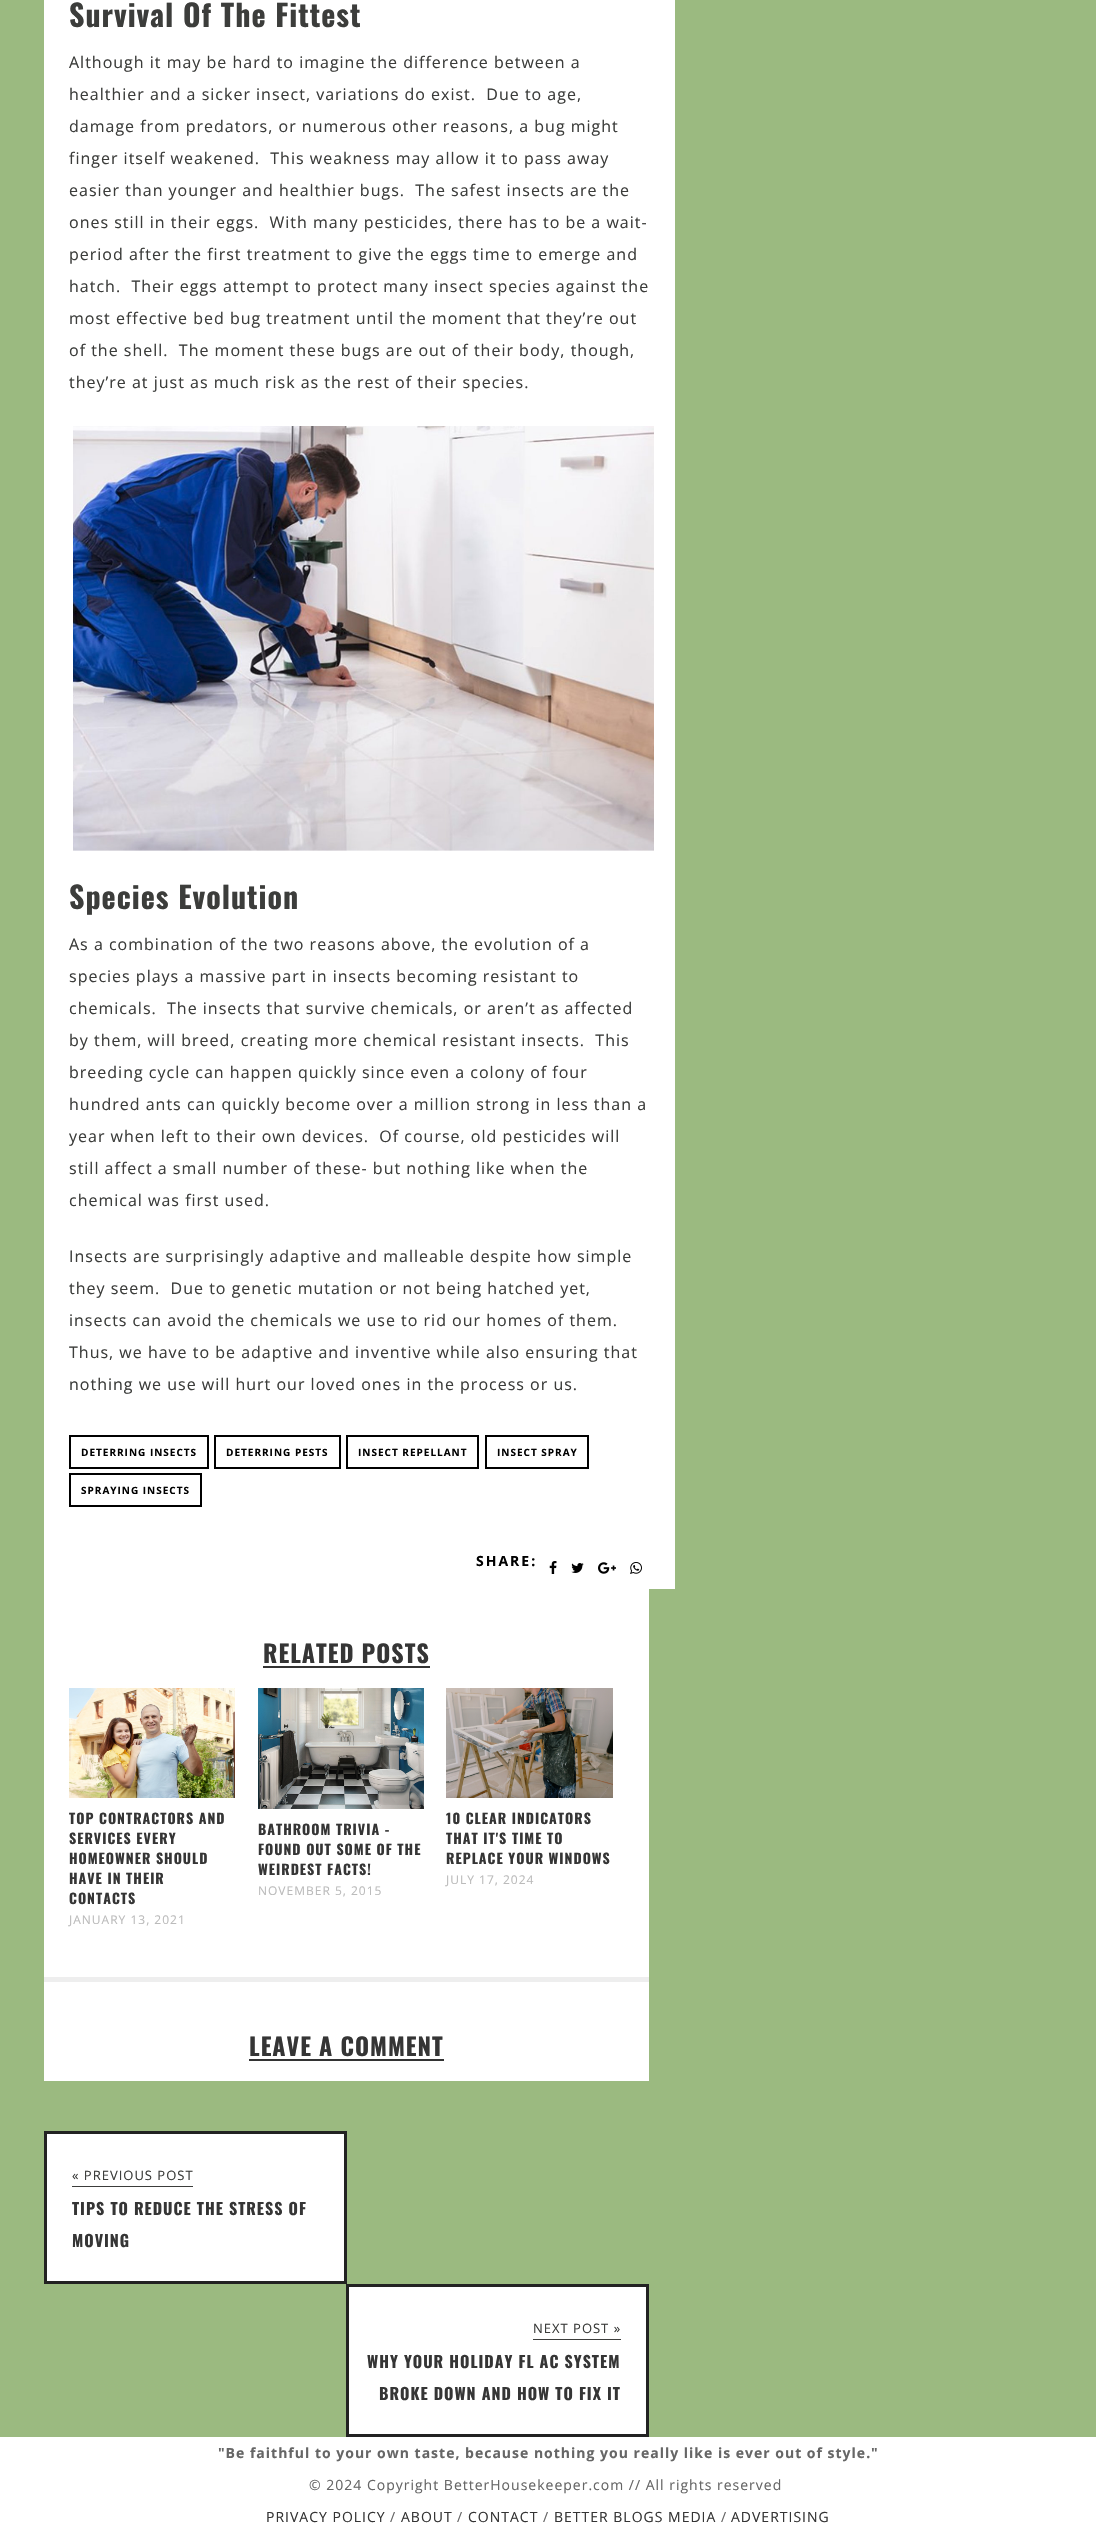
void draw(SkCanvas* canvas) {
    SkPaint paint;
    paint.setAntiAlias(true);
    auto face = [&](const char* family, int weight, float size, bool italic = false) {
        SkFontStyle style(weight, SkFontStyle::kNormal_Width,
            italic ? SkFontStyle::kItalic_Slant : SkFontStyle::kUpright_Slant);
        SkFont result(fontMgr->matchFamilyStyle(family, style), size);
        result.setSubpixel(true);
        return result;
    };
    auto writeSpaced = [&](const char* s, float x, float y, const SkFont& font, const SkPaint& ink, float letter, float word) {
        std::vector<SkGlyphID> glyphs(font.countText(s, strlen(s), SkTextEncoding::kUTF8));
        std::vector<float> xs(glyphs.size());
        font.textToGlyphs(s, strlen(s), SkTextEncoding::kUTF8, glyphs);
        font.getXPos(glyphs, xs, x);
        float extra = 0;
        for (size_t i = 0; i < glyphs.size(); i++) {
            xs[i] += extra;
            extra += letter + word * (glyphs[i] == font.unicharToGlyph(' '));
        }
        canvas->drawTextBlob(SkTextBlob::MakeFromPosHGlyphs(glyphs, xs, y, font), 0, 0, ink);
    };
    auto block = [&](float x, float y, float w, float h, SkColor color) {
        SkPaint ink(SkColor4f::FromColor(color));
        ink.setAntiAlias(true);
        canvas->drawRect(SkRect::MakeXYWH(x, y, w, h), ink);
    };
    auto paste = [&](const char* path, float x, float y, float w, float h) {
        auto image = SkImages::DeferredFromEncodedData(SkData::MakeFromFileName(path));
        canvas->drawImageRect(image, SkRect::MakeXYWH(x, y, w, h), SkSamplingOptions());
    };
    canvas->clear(SkColorSetRGB(155, 186, 128));
    block(44, 0, 631, 1589, SK_ColorWHITE);
    auto kFont1 = face("Oswald", 700, 30);
    paint.setColor(SkColorSetRGB(60, 61, 59));
    writeSpaced("Survival Of The Fittest", 69, 27, kFont1, paint, 1, 0);
    auto kFont2 = face("Open Sans", 400, 16);
    writeSpaced("Although it may be hard to imagine the difference between a", 69, 68, kFont2, paint, 1, 0);
    writeSpaced("healthier and a sicker insect, variations do exist.  Due to age,", 69, 100, kFont2, paint, 1, 0);
    writeSpaced("damage from predators, or numerous other reasons, a bug might", 69, 132, kFont2, paint, 1, 0);
    writeSpaced("finger itself weakened.  This weakness may allow it to pass away", 69, 164, kFont2, paint, 1, 0);
    writeSpaced("easier than younger and healthier bugs.  The safest insects are the", 69, 196, kFont2, paint, 1, 0);
    writeSpaced("ones still in their eggs.  With many pesticides, there has to be a wait-", 69, 228, kFont2, paint, 1, 0);
    writeSpaced("period after the first treatment to give the eggs time to emerge and", 69, 260, kFont2, paint, 1, 0);
    writeSpaced("hatch.  Their eggs attempt to protect many insect species against the", 69, 292, kFont2, paint, 1, 0);
    writeSpaced("most effective bed bug treatment until the moment that they’re out", 69, 324, kFont2, paint, 1, 0);
    writeSpaced("of the shell.  The moment these bugs are out of their body, though,", 69, 356, kFont2, paint, 1, 0);
    writeSpaced("they’re at just as much risk as the rest of their species.", 69, 388, kFont2, paint, 1, 0);
    paste("pic1.png", 73, 426, 581, 425);
    writeSpaced("Species Evolution", 69, 909, kFont1, paint, 1, 0);
    writeSpaced("As a combination of the two reasons above, the evolution of a", 69, 950, kFont2, paint, 1, 0);
    writeSpaced("species plays a massive part in insects becoming resistant to", 69, 982, kFont2, paint, 1, 0);
    writeSpaced("chemicals.  The insects that survive chemicals, or aren’t as affected", 69, 1014, kFont2, paint, 1, 0);
    writeSpaced("by them, will breed, creating more chemical resistant insects.  This", 69, 1046, kFont2, paint, 1, 0);
    writeSpaced("breeding cycle can happen quickly since even a colony of four", 69, 1078, kFont2, paint, 1, 0);
    writeSpaced("hundred ants can quickly become over a million strong in less than a", 69, 1110, kFont2, paint, 1, 0);
    writeSpaced("year when left to their own devices.  Of course, old pesticides will", 69, 1142, kFont2, paint, 1, 0);
    writeSpaced("still affect a small number of these- but nothing like when the", 69, 1174, kFont2, paint, 1, 0);
    writeSpaced("chemical was first used.", 69, 1206, kFont2, paint, 1, 0);
    writeSpaced("Insects are surprisingly adaptive and malleable despite how simple", 69, 1262, kFont2, paint, 1, 0);
    writeSpaced("they seem.  Due to genetic mutation or not being hatched yet,", 69, 1294, kFont2, paint, 1, 0);
    writeSpaced("insects can avoid the chemicals we use to rid our homes of them.", 69, 1326, kFont2, paint, 1, 0);
    writeSpaced("Thus, we have to be adaptive and inventive while also ensuring that", 69, 1358, kFont2, paint, 1, 0);
    writeSpaced("nothing we use will hurt our loved ones in the process or us.", 69, 1390, kFont2, paint, 1, 0);
    paint.setStyle(SkPaint::kStroke_Style);
    paint.setStrokeWidth(2);
    paint.setColor(SK_ColorBLACK);
    canvas->drawRect(SkRect::MakeXYWH(70, 1436, 138, 32), paint);
    auto kFont3 = face("Open Sans", 700, 10);
    paint.setStyle(SkPaint::kFill_Style);
    writeSpaced("DETERRING INSECTS", 81, 1456, kFont3, paint, 1, 0);
    paint.setStyle(SkPaint::kStroke_Style);
    canvas->drawRect(SkRect::MakeXYWH(215, 1436, 125, 32), paint);
    paint.setStyle(SkPaint::kFill_Style);
    writeSpaced("DETERRING PESTS", 226, 1456, kFont3, paint, 1, 0);
    paint.setStyle(SkPaint::kStroke_Style);
    canvas->drawRect(SkRect::MakeXYWH(347, 1436, 131, 32), paint);
    paint.setStyle(SkPaint::kFill_Style);
    writeSpaced("INSECT REPELLANT", 358, 1456, kFont3, paint, 1, 0);
    paint.setStyle(SkPaint::kStroke_Style);
    canvas->drawRect(SkRect::MakeXYWH(486, 1436, 102, 32), paint);
    paint.setStyle(SkPaint::kFill_Style);
    writeSpaced("INSECT SPRAY", 497, 1456, kFont3, paint, 1, 0);
    paint.setStyle(SkPaint::kStroke_Style);
    canvas->drawRect(SkRect::MakeXYWH(70, 1474, 131, 32), paint);
    paint.setStyle(SkPaint::kFill_Style);
    writeSpaced("SPRAYING INSECTS", 81, 1494, kFont3, paint, 1, 0);
    auto kFont4 = face("Open Sans", 700, 14);
    writeSpaced("SHARE:", 476, 1566, kFont4, paint, 2, 0);
    paste("pic2.png", 549, 1561, 8, 13);
    paste("pic3.png", 571, 1563, 13, 10);
    paste("pic4.png", 598, 1562, 18, 12);
    paste("pic5.png", 630, 1562, 12, 12);
    block(44, 1589, 605, 388, SK_ColorWHITE);
    block(44, 1977, 605, 5, SkColorSetRGB(238, 238, 238));
    block(263, 1666, 167, 2, SkColorSetRGB(51, 51, 51));
    auto kFont5 = face("Oswald", 700, 24);
    paint.setColor(SkColorSetRGB(53, 53, 53));
    writeSpaced("RELATED POSTS", 263, 1663, kFont5, paint, 1, 0);
    paste("pic6.png", 69, 1688, 166, 110);
    auto kFont6 = face("Oswald", 700, 14);
    writeSpaced("TOP CONTRACTORS AND", 69, 1824, kFont6, paint, 1, 0);
    writeSpaced("SERVICES EVERY", 69, 1844, kFont6, paint, 1, 0);
    writeSpaced("HOMEOWNER SHOULD", 69, 1864, kFont6, paint, 1, 0);
    writeSpaced("HAVE IN THEIR", 69, 1884, kFont6, paint, 1, 0);
    writeSpaced("CONTACTS", 69, 1904, kFont6, paint, 1, 0);
    auto kFont7 = face("Open Sans", 400, 12);
    paint.setColor(SkColorSetRGB(187, 187, 187));
    writeSpaced("JANUARY 13, 2021", 69, 1924, kFont7, paint, 1, 0);
    paste("pic7.png", 258, 1688, 166, 121);
    paint.setColor(SkColorSetRGB(53, 53, 53));
    writeSpaced("BATHROOM TRIVIA -", 258, 1835, kFont6, paint, 1, 0);
    writeSpaced("FOUND OUT SOME OF THE", 258, 1855, kFont6, paint, 1, 0);
    writeSpaced("WEIRDEST FACTS!", 258, 1875, kFont6, paint, 1, 0);
    paint.setColor(SkColorSetRGB(187, 187, 187));
    writeSpaced("NOVEMBER 5, 2015", 258, 1895, kFont7, paint, 1, 0);
    paste("pic8.png", 446, 1688, 167, 110);
    paint.setColor(SkColorSetRGB(53, 53, 53));
    writeSpaced("10 CLEAR INDICATORS", 446, 1824, kFont6, paint, 1, 0);
    writeSpaced("THAT IT'S TIME TO", 446, 1844, kFont6, paint, 1, 0);
    writeSpaced("REPLACE YOUR WINDOWS", 446, 1864, kFont6, paint, 1, 0);
    paint.setColor(SkColorSetRGB(187, 187, 187));
    writeSpaced("JULY 17, 2024", 446, 1884, kFont7, paint, 1, 0);
    block(44, 1982, 605, 99, SK_ColorWHITE);
    block(249, 2059, 195, 2, SkColorSetRGB(51, 51, 51));
    paint.setColor(SkColorSetRGB(53, 53, 53));
    writeSpaced("LEAVE A COMMENT", 249, 2056, kFont5, paint, 1, 0);
    paint.setColor(SK_ColorWHITE);
    canvas->drawRect(SkRect::MakeXYWH(45.5f, 2132.5f, 300, 150), paint);
    paint.setStyle(SkPaint::kStroke_Style);
    paint.setStrokeWidth(3);
    paint.setColor(SkColorSetRGB(34, 34, 34));
    canvas->drawRect(SkRect::MakeXYWH(45.5f, 2132.5f, 300, 150), paint);
    block(72, 2186, 121, 1, SkColorSetRGB(60, 61, 59));
    auto kFont8 = face("Open Sans", 400, 13);
    paint.setStyle(SkPaint::kFill_Style);
    paint.setColor(SkColorSetRGB(60, 61, 59));
    writeSpaced("« PREVIOUS POST", 72, 2180, kFont8, paint, 1, 0);
    auto kFont9 = face("Oswald", 700, 16);
    paint.setColor(SkColorSetRGB(53, 53, 53));
    writeSpaced("TIPS TO REDUCE THE STRESS OF", 72, 2215, kFont9, paint, 1, 0);
    writeSpaced("MOVING", 72, 2247, kFont9, paint, 1, 0);
    paint.setColor(SK_ColorWHITE);
    canvas->drawRect(SkRect::MakeXYWH(347.5f, 2285.5f, 300, 150), paint);
    paint.setStyle(SkPaint::kStroke_Style);
    paint.setColor(SkColorSetRGB(34, 34, 34));
    canvas->drawRect(SkRect::MakeXYWH(347.5f, 2285.5f, 300, 150), paint);
    block(533, 2339, 88, 1, SkColorSetRGB(60, 61, 59));
    paint.setStyle(SkPaint::kFill_Style);
    paint.setColor(SkColorSetRGB(60, 61, 59));
    writeSpaced("NEXT POST »", 533, 2333, kFont8, paint, 1, 0);
    paint.setColor(SkColorSetRGB(53, 53, 53));
    writeSpaced("WHY YOUR HOLIDAY FL AC SYSTEM", 367, 2368, kFont9, paint, 1, 0);
    writeSpaced("BROKE DOWN AND HOW TO FIX IT", 379, 2400, kFont9, paint, 1, 0);
    block(0, 2437, 1096, 101, SK_ColorWHITE);
    paint.setColor(SkColorSetRGB(102, 102, 102));
    writeSpaced("\"Be faithful to your own taste, because nothing you really like is ever out of style.\"", 218, 2458, kFont4, paint, 1, 0);
    auto kFont10 = face("Open Sans", 400, 14);
    writeSpaced("© 2024 Copyright BetterHousekeeper.com // All rights reserved", 309, 2490, kFont10, paint, 1, 0);
    paint.setColor(SkColorSetRGB(53, 53, 53));
    writeSpaced("PRIVACY POLICY", 266, 2522, kFont10, paint, 1, 0);
    paint.setColor(SkColorSetRGB(102, 102, 102));
    writeSpaced("/", 390, 2522, kFont10, paint, 1, 0);
    paint.setColor(SkColorSetRGB(53, 53, 53));
    writeSpaced("ABOUT", 401, 2522, kFont10, paint, 1, 0);
    paint.setColor(SkColorSetRGB(102, 102, 102));
    writeSpaced("/", 457, 2522, kFont10, paint, 1, 0);
    paint.setColor(SkColorSetRGB(53, 53, 53));
    writeSpaced("CONTACT", 468, 2522, kFont10, paint, 1, 0);
    paint.setColor(SkColorSetRGB(102, 102, 102));
    writeSpaced("/", 543, 2522, kFont10, paint, 1, 0);
    paint.setColor(SkColorSetRGB(53, 53, 53));
    writeSpaced("BETTER BLOGS MEDIA", 554, 2522, kFont10, paint, 1, 0);
    paint.setColor(SkColorSetRGB(102, 102, 102));
    writeSpaced("/", 721, 2522, kFont10, paint, 1, 0);
    paint.setColor(SkColorSetRGB(53, 53, 53));
    writeSpaced("ADVERTISING", 731, 2522, kFont10, paint, 1, 0);
}
